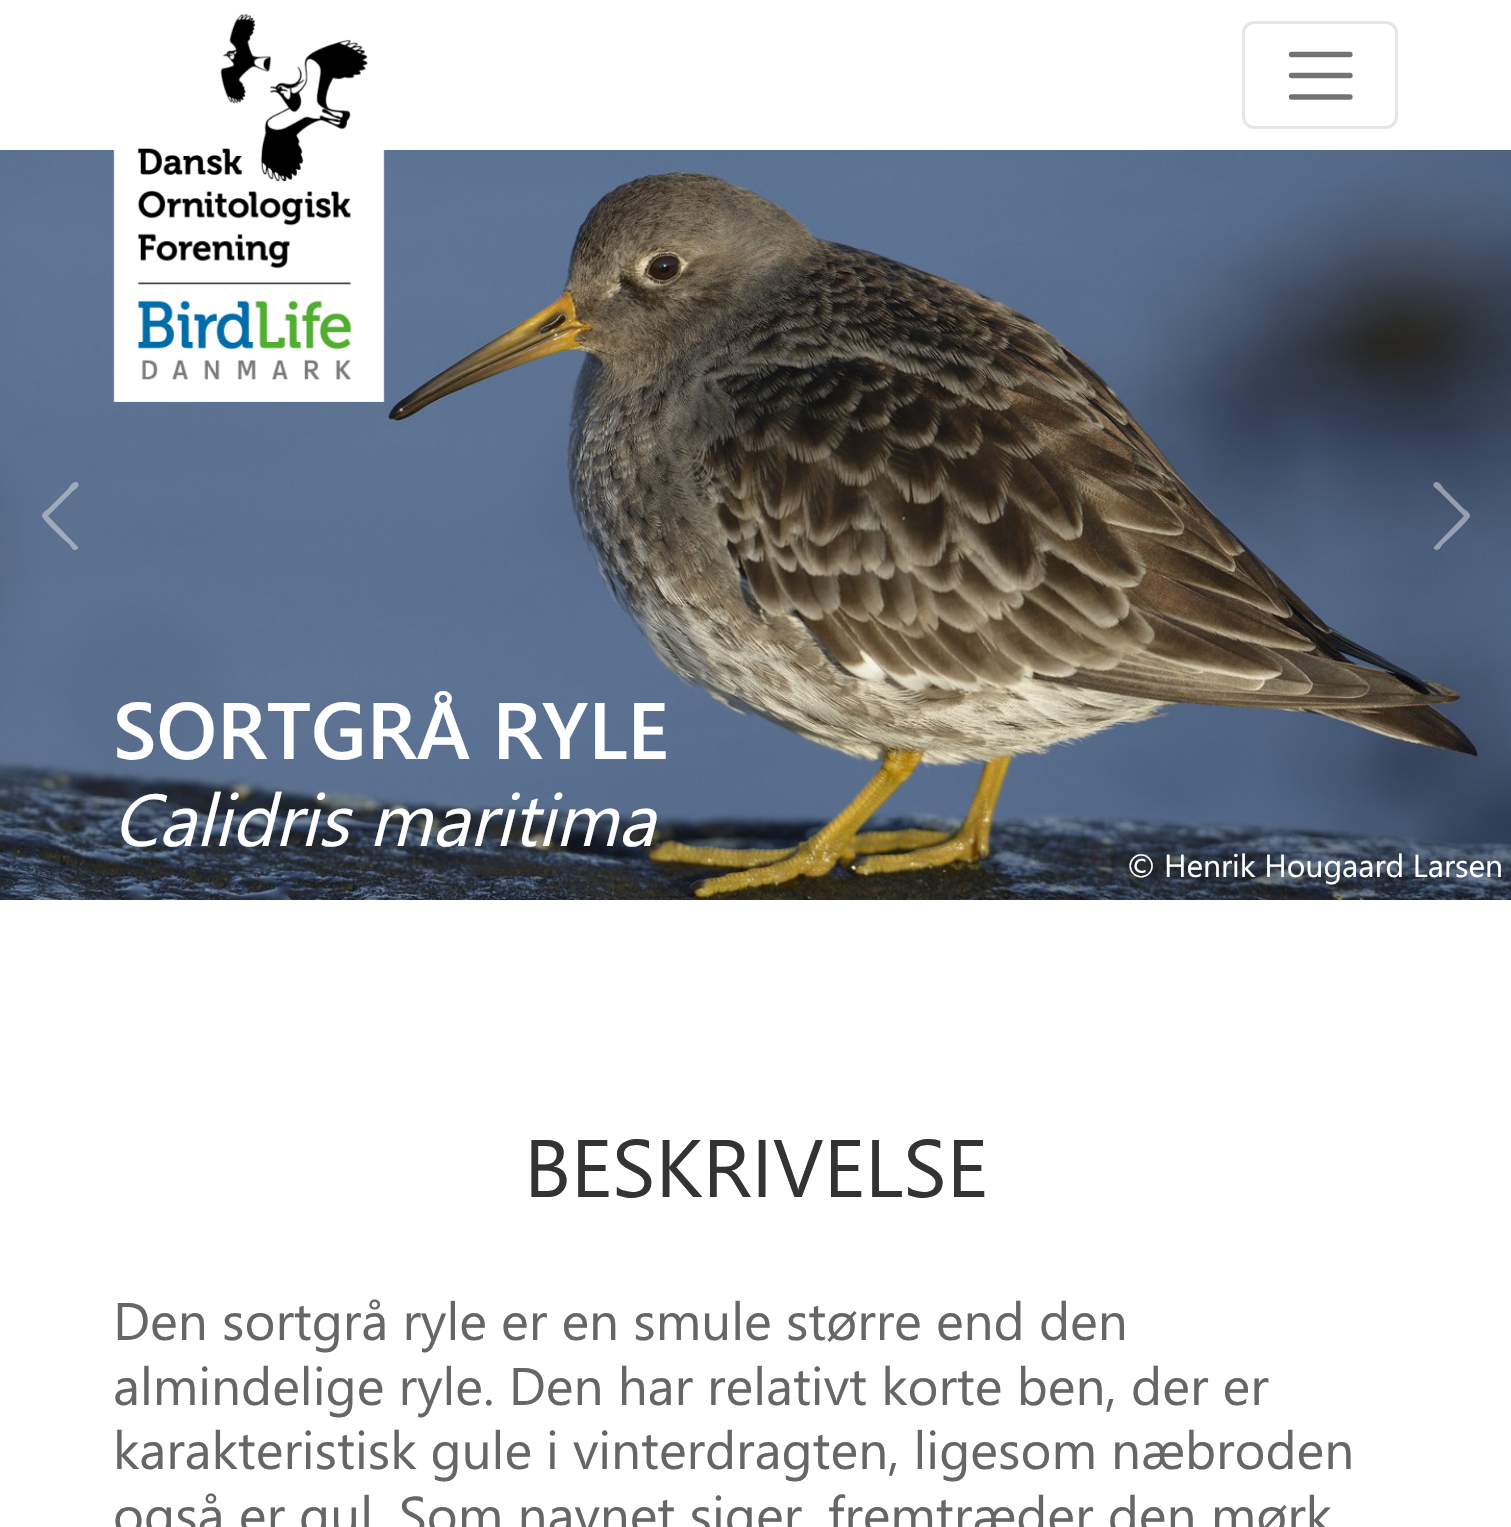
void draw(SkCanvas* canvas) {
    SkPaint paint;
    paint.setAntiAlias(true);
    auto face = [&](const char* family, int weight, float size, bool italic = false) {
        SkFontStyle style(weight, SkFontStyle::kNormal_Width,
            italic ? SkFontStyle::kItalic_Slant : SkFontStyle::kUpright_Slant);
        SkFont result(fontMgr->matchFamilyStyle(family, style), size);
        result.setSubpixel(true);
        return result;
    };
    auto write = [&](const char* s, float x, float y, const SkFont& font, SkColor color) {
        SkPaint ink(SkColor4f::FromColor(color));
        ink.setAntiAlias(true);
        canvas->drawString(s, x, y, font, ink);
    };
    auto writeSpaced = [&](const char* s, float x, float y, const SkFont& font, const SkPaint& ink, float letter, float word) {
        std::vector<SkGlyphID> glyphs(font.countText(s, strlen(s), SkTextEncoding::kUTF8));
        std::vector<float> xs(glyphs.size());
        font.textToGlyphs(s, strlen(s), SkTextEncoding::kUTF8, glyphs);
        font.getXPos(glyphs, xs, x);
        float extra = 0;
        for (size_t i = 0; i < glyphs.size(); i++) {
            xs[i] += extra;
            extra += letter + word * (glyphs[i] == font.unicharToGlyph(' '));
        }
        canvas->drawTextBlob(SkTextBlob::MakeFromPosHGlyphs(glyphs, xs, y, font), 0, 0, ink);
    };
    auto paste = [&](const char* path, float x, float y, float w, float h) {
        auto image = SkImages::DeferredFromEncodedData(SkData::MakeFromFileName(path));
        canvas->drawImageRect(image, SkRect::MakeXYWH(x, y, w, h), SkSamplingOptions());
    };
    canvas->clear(SK_ColorWHITE);
    paste("pic2.png", 0, 150, 1511, 750);
    paste("pic1.png", 113, 13, 272, 389);
    paint.setStyle(SkPaint::kStroke_Style);
    paint.setStrokeWidth(3);
    paint.setColor(SkColorSetRGB(230, 230, 230));
    canvas->drawRoundRect(SkRect::MakeXYWH(1243.5f, 22.5f, 153, 105), 10.5f, 10.5f, paint);
    paint.setStrokeWidth(5.3f);
    paint.setStrokeCap(SkPaint::kRound_Cap);
    paint.setColor(SkColorSetRGB(115, 115, 115));
    canvas->drawPath(SkPathBuilder().moveTo(1291.5f, 54.5f).lineTo(1350, 54.5f).moveTo(1291.5f, 75.5f).lineTo(1350, 75.5f).moveTo(1291.5f, 97).lineTo(1350, 97).detach(), paint);
    paint.setStyle(SkPaint::kFill_Style);
    paint.setColor(SkColorSetARGB(135, 221, 221, 221));
    canvas->drawPath(SkPathBuilder(SkPathFillType::kEvenOdd).moveTo(78, 483).cubicTo(81, 486, 74, 490, 73, 491).lineTo(48, 516).lineTo(78, 547).cubicTo(79, 548, 77, 550, 75, 550).cubicTo(72, 550, 71, 546, 69, 544).cubicTo(65, 541, 42, 519, 42, 516).cubicTo(42, 513, 45, 511, 48, 509).lineTo(69, 488).cubicTo(69, 487, 74, 479, 78, 483).close().detach(), paint);
    canvas->drawPath(SkPathBuilder(SkPathFillType::kEvenOdd).moveTo(1434, 483).cubicTo(1438, 479, 1443, 487, 1443, 488).lineTo(1464, 509).cubicTo(1467, 511, 1470, 513, 1470, 516).cubicTo(1470, 519, 1447, 541, 1443, 544).cubicTo(1441, 546, 1440, 550, 1437, 550).cubicTo(1435, 550, 1433, 548, 1434, 547).lineTo(1464, 516).lineTo(1439, 491).cubicTo(1438, 490, 1431, 486, 1434, 483).close().detach(), paint);
    auto kFont1 = face("Segoe UI", 600, 80);
    write("SORTGRÅ RYLE", 113, 759, kFont1, SK_ColorWHITE);
    auto kFont2 = face("Segoe UI", 400, 73.25f, true);
    write("Calidris maritima", 113, 846, kFont2, SK_ColorWHITE);
    auto kFont3 = face("Segoe UI", 400, 31.75f);
    write("© Henrik Hougaard Larsen", 1127, 877, kFont3, SK_ColorWHITE);
    auto kFont4 = face("Segoe UI", 400, 81.5f);
    write("BESKRIVELSE", 524, 1197, kFont4, SkColorSetRGB(51, 51, 51));
    auto kFont5 = face("Segoe UI", 400, 52.9f);
    paint.setColor(SkColorSetRGB(102, 102, 102));
    writeSpaced("Den sortgrå ryle er en smule større end den", 113, 1340, kFont5, paint, 0, -0.25f);
    writeSpaced("almindelige ryle. Den har relativt korte ben, der er", 113, 1405, kFont5, paint, 0, -0.25f);
    writeSpaced("karakteristisk gule i vinterdragten, ligesom næbroden", 113, 1469, kFont5, paint, 0, -0.5f);
    writeSpaced("også er gul. Som navnet siger, fremtræder den mørk", 113, 1534, kFont5, paint, 0, -0.25f);
}
